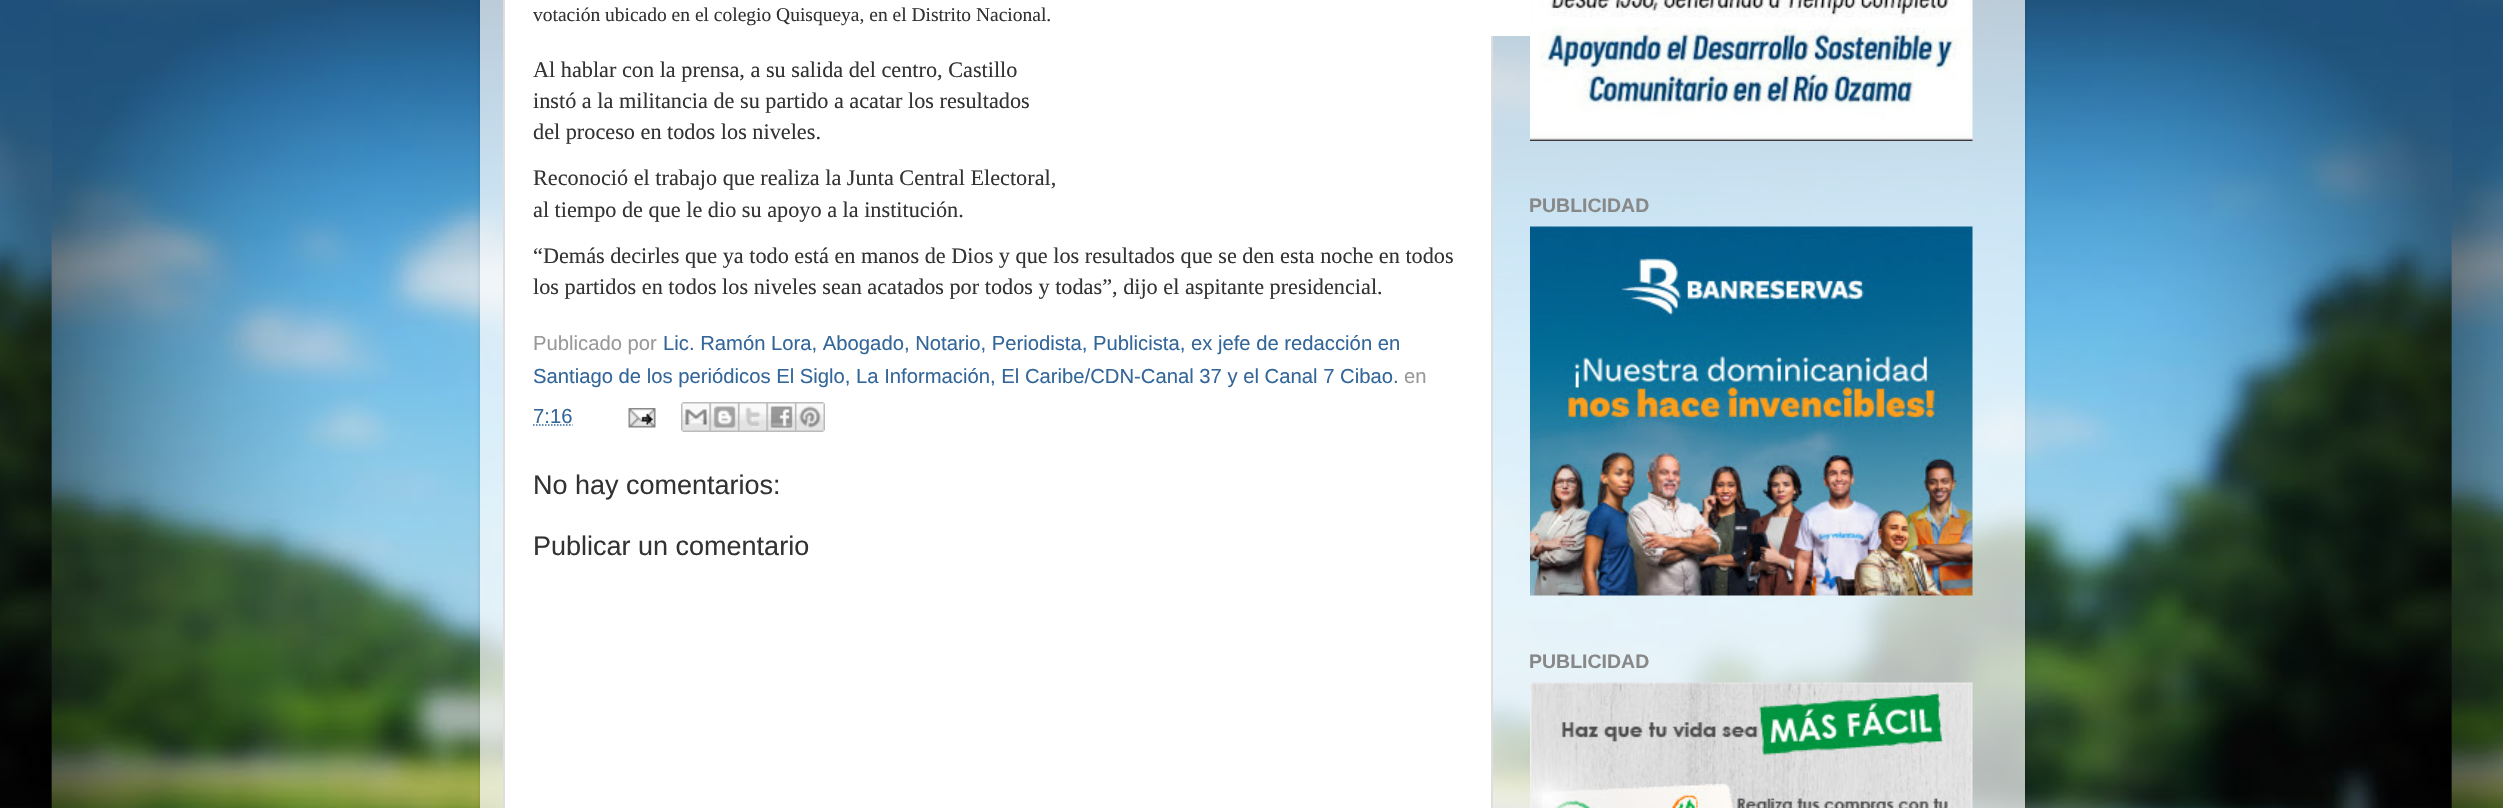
void draw(SkCanvas* canvas) {
    SkPaint paint;
    paint.setAntiAlias(true);
    auto face = [&](const char* family, int weight, float size, bool italic = false) {
        SkFontStyle style(weight, SkFontStyle::kNormal_Width,
            italic ? SkFontStyle::kItalic_Slant : SkFontStyle::kUpright_Slant);
        SkFont result(fontMgr->matchFamilyStyle(family, style), size);
        result.setSubpixel(true);
        return result;
    };
    auto write = [&](const char* s, float x, float y, const SkFont& font, SkColor color) {
        SkPaint ink(SkColor4f::FromColor(color));
        ink.setAntiAlias(true);
        canvas->drawString(s, x, y, font, ink);
    };
    auto block = [&](float x, float y, float w, float h, SkColor color) {
        SkPaint ink(SkColor4f::FromColor(color));
        ink.setAntiAlias(true);
        canvas->drawRect(SkRect::MakeXYWH(x, y, w, h), ink);
    };
    auto paste = [&](const char* path, float x, float y, float w, float h) {
        auto image = SkImages::DeferredFromEncodedData(SkData::MakeFromFileName(path));
        canvas->drawImageRect(image, SkRect::MakeXYWH(x, y, w, h), SkSamplingOptions());
    };
    canvas->clear(SK_ColorWHITE);
    paste("pic1.png", 0, 0, 2503, 808);
    canvas->save();
    canvas->clipPath(SkPathBuilder(SkPathFillType::kEvenOdd).moveTo(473, 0).lineTo(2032, 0).lineTo(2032, 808).lineTo(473, 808).close().moveTo(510, -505).lineTo(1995, -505).cubicTo(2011.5f, -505, 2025, -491.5f, 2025, -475).lineTo(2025, 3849).lineTo(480, 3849).lineTo(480, -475).cubicTo(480, -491.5f, 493.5f, -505, 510, -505).close().detach(), true);
    paint.setColor(SkColorSetARGB(38, 0, 0, 0));
    paint.setMaskFilter(SkMaskFilter::MakeBlur(kNormal_SkBlurStyle, 2));
    canvas->drawRoundRect(SkRect::MakeXYWH(480, -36, 1545, 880), 30, 30, paint);
    paint.setMaskFilter(nullptr);
    canvas->restore();
    block(480, 0, 1545, 808, SkColorSetARGB(179, 255, 255, 255));
    paint.setColor(SK_ColorWHITE);
    canvas->drawRect(SkRect::MakeXYWH(504, -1, 988, 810), paint);
    paint.setStyle(SkPaint::kStroke_Style);
    paint.setStrokeWidth(2);
    paint.setColor(SkColorSetRGB(221, 221, 221));
    canvas->drawRect(SkRect::MakeXYWH(504, -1, 988, 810), paint);
    block(1491, 0, 39, 36, SK_ColorWHITE);
    auto kFont1 = face("Liberation Serif", 400, 19.5f);
    write("votación ubicado en el colegio Quisqueya, en el Distrito Nacional.", 533, 21, kFont1, SkColorSetRGB(51, 51, 51));
    auto kFont2 = face("Liberation Serif", 400, 22.25f);
    write("Al hablar con la prensa, a su salida del centro, Castillo", 533, 77, kFont2, SkColorSetRGB(51, 51, 51));
    write("instó a la militancia de su partido a acatar los resultados", 533, 108, kFont2, SkColorSetRGB(51, 51, 51));
    write("del proceso en todos los niveles.", 533, 139, kFont2, SkColorSetRGB(51, 51, 51));
    write("Reconoció el trabajo que realiza la Junta Central Electoral,", 533, 185, kFont2, SkColorSetRGB(51, 51, 51));
    write("al tiempo de que le dio su apoyo a la institución.", 533, 217, kFont2, SkColorSetRGB(51, 51, 51));
    write("“Demás decirles que ya todo está en manos de Dios y que los resultados que se den esta noche en todos", 533, 263, kFont2, SkColorSetRGB(51, 51, 51));
    write("los partidos en todos los niveles sean acatados por todos y todas”, dijo el aspitante presidencial.", 533, 294, kFont2, SkColorSetRGB(51, 51, 51));
    auto kFont3 = face("Liberation Sans", 400, 20.25f);
    write("Publicado por", 533, 350, kFont3, SkColorSetRGB(153, 153, 153));
    write("Lic. Ramón Lora, Abogado, Notario, Periodista, Publicista, ex jefe de redacción en", 663, 350, kFont3, SkColorSetRGB(51, 102, 153));
    write("Santiago de los periódicos El Siglo, La Información, El Caribe/CDN-Canal 37 y el Canal 7 Cibao.", 533, 383, kFont3, SkColorSetRGB(51, 102, 153));
    write("en", 1404, 383, kFont3, SkColorSetRGB(153, 153, 153));
    write("7:16", 533, 423, kFont3, SkColorSetRGB(51, 102, 153));
    paint.setStrokeWidth(1.5f);
    paint.setColor(SkColorSetRGB(51, 102, 153));
    paint.setPathEffect(SkDashPathEffect::Make({{1.5f, 1.5f}}, 0));
    canvas->drawPath(SkPathBuilder().moveTo(533, 425).lineTo(572.5f, 425).detach(), paint);
    paint.setPathEffect(nullptr);
    paste("pic2.png", 628, 408, 28, 20);
    paste("pic3.png", 681, 402, 29, 30);
    paste("pic4.png", 709, 402, 29, 30);
    paste("pic5.png", 738, 402, 29, 30);
    paste("pic6.png", 766, 402, 29, 30);
    paste("pic7.png", 795, 402, 30, 30);
    auto kFont4 = face("Liberation Sans", 400, 27);
    write("No hay comentarios:", 533, 494, kFont4, SkColorSetRGB(51, 51, 51));
    write("Publicar un comentario", 533, 555, kFont4, SkColorSetRGB(51, 51, 51));
    paste("pic8.png", 1530, 0, 443, 141);
    auto kFont5 = face("Liberation Sans", 700, 19.5f);
    write("PUBLICIDAD", 1529, 212, kFont5, SkColorSetRGB(136, 136, 136));
    paste("pic9.png", 1530, 226, 443, 370);
    write("PUBLICIDAD", 1529, 668, kFont5, SkColorSetRGB(136, 136, 136));
    paste("pic10.png", 1530, 682, 443, 126);
}
